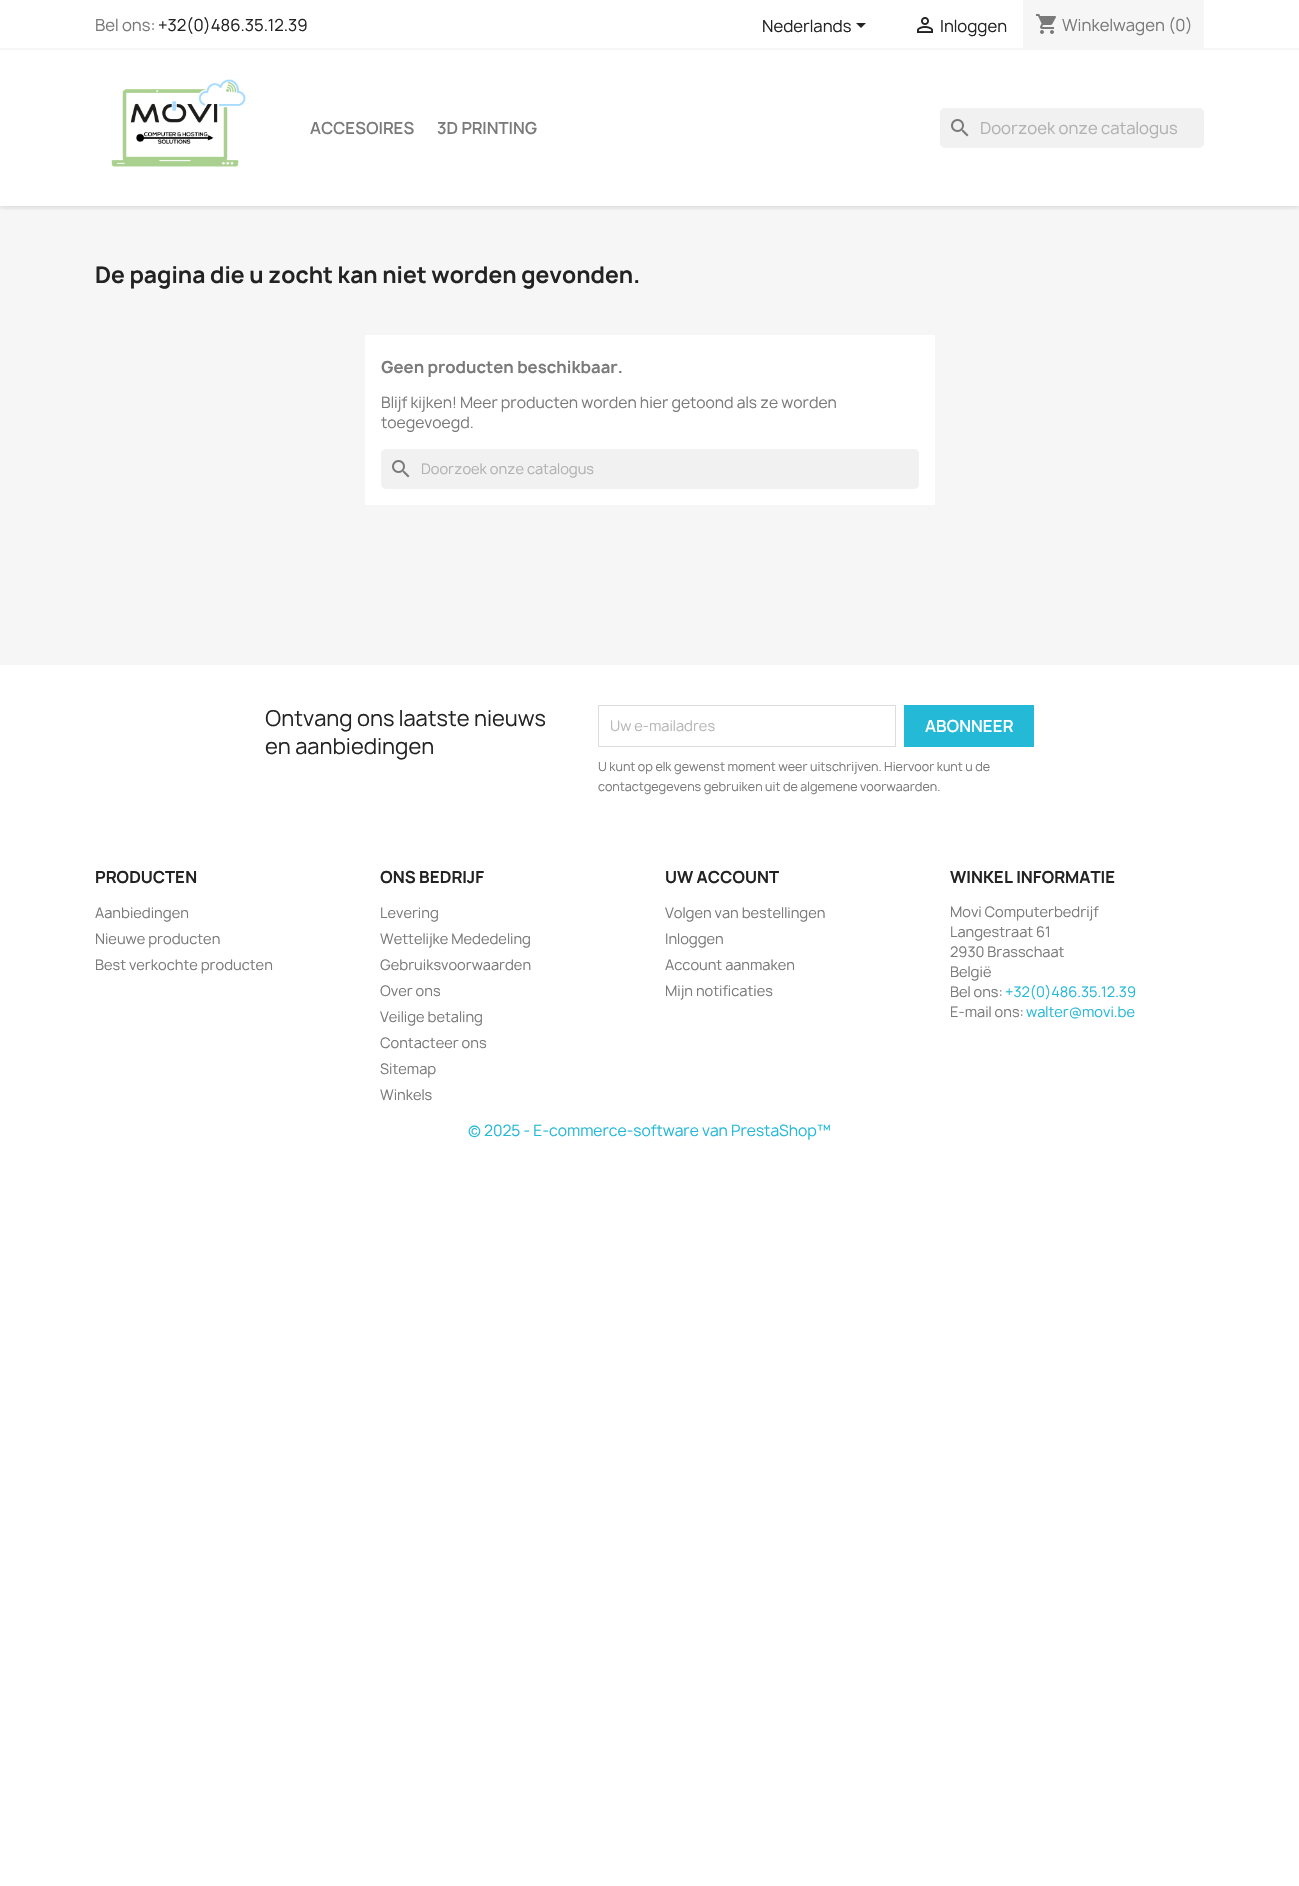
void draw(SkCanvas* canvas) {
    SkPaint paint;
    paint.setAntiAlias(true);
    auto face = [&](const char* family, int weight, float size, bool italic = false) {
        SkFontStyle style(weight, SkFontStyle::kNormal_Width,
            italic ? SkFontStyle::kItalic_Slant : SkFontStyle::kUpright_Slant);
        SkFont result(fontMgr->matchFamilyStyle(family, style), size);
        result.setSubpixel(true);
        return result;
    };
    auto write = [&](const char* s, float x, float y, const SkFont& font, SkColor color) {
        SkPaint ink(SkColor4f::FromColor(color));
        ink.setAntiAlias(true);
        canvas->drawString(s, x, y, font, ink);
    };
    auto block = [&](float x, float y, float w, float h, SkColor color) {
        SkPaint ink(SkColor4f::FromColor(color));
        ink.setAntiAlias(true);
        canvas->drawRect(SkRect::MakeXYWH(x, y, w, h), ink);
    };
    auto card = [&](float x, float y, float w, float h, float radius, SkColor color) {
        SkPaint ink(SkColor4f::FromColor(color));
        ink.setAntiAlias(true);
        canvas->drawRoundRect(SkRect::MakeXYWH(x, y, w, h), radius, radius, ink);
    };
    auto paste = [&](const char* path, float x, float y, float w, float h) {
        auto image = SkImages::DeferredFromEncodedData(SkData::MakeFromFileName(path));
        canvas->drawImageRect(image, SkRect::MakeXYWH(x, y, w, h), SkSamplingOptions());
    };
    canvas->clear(SK_ColorWHITE);
    block(0, 206, 1299, 459, SkColorSetRGB(246, 246, 246));
    canvas->save();
    canvas->clipRect(SkRect::MakeXYWH(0, 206, 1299, 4));
    paint.setColor(SkColorSetARGB(28, 0, 0, 0));
    paint.setMaskFilter(SkMaskFilter::MakeBlur(kNormal_SkBlurStyle, 2.5f));
    canvas->drawRect(SkRect::MakeXYWH(0, 2, 1299, 206), paint);
    paint.setMaskFilter(nullptr);
    canvas->restore();
    block(0, 48, 1299, 2, SkColorSetRGB(246, 246, 246));
    auto kFont1 = face("Manrope", 400, 16);
    write("Bel ons:", 95, 31, kFont1, SkColorSetRGB(122, 122, 122));
    write("+32(0)486.35.12.39", 158, 31, kFont1, SkColorSetRGB(35, 35, 35));
    write("Nederlands", 762, 32, kFont1, SkColorSetRGB(35, 35, 35));
    paint.setColor(SkColorSetRGB(35, 35, 35));
    canvas->drawPath(SkPathBuilder().moveTo(856, 23).lineTo(866, 23).lineTo(861, 28).close().detach(), paint);
    paste("pic1.png", 917, 17, 16, 16);
    write("Inloggen", 940, 32, kFont1, SkColorSetRGB(35, 35, 35));
    block(1023, 0, 181, 48, SkColorSetRGB(246, 246, 246));
    paste("pic2.png", 1036, 14, 20, 20);
    write("Winkelwagen (0)", 1062, 31, kFont1, SkColorSetRGB(122, 122, 122));
    paste("pic3.png", 111, 79, 135, 88);
    auto kFont2 = face("Manrope", 600, 16);
    write("ACCESOIRES", 310, 134, kFont2, SkColorSetRGB(122, 122, 122));
    write("3D PRINTING", 437, 134, kFont2, SkColorSetRGB(122, 122, 122));
    card(940, 108, 264, 40, 5, SkColorSetRGB(241, 241, 241));
    paste("pic4.png", 951, 119, 18, 18);
    write("Doorzoek onze catalogus", 980, 134, kFont1, SkColorSetRGB(177, 177, 177));
    auto kFont3 = face("Manrope", 700, 22);
    write("De pagina die u zocht kan niet worden gevonden.", 95, 283, kFont3, SkColorSetRGB(35, 35, 35));
    block(365, 335, 570, 170, SK_ColorWHITE);
    auto kFont4 = face("Manrope", 700, 16);
    write("Geen producten beschikbaar.", 381, 373, kFont4, SkColorSetRGB(122, 122, 122));
    auto kFont5 = face("Manrope", 400, 15);
    write("Blijf kijken! Meer producten worden hier getoond als ze worden", 381, 408, kFont5, SkColorSetRGB(122, 122, 122));
    write("toegevoegd.", 381, 428, kFont5, SkColorSetRGB(122, 122, 122));
    card(381, 449, 538, 40, 5, SkColorSetRGB(241, 241, 241));
    paste("pic4.png", 392, 460, 18, 18);
    auto kFont6 = face("Manrope", 400, 14);
    write("Doorzoek onze catalogus", 421, 474, kFont6, SkColorSetRGB(177, 177, 177));
    auto kFont7 = face("Manrope", 400, 21);
    write("Ontvang ons laatste nieuws", 265, 726, kFont7, SkColorSetRGB(35, 35, 35));
    write("en aanbiedingen", 265, 754, kFont7, SkColorSetRGB(35, 35, 35));
    paint.setStyle(SkPaint::kStroke_Style);
    paint.setStrokeWidth(1);
    paint.setColor(SkColorSetRGB(221, 221, 221));
    canvas->drawRect(SkRect::MakeXYWH(598.5f, 705.5f, 297, 41), paint);
    write("Uw e-mailadres", 610, 731, kFont6, SkColorSetRGB(183, 183, 183));
    block(904, 705, 130, 42, SkColorSetRGB(36, 185, 215));
    write("ABONNEER", 925, 732, kFont2, SK_ColorWHITE);
    auto kFont8 = face("Manrope", 400, 12);
    write("U kunt op elk gewenst moment weer uitschrijven. Hiervoor kunt u de", 598, 771, kFont8, SkColorSetRGB(122, 122, 122));
    write("contactgegevens gebruiken uit de algemene voorwaarden.", 598, 791, kFont8, SkColorSetRGB(122, 122, 122));
    write("PRODUCTEN", 95, 883, kFont4, SkColorSetRGB(35, 35, 35));
    write("Aanbiedingen", 95, 918, kFont6, SkColorSetRGB(122, 122, 122));
    write("Nieuwe producten", 95, 944, kFont6, SkColorSetRGB(122, 122, 122));
    write("Best verkochte producten", 95, 970, kFont6, SkColorSetRGB(122, 122, 122));
    write("ONS BEDRIJF", 380, 883, kFont4, SkColorSetRGB(35, 35, 35));
    write("Levering", 380, 918, kFont6, SkColorSetRGB(122, 122, 122));
    write("Wettelijke Mededeling", 380, 944, kFont6, SkColorSetRGB(122, 122, 122));
    write("Gebruiksvoorwaarden", 380, 970, kFont6, SkColorSetRGB(122, 122, 122));
    write("Over ons", 380, 996, kFont6, SkColorSetRGB(122, 122, 122));
    write("Veilige betaling", 380, 1022, kFont6, SkColorSetRGB(122, 122, 122));
    write("Contacteer ons", 380, 1048, kFont6, SkColorSetRGB(122, 122, 122));
    write("Sitemap", 380, 1074, kFont6, SkColorSetRGB(122, 122, 122));
    write("Winkels", 380, 1100, kFont6, SkColorSetRGB(122, 122, 122));
    write("UW ACCOUNT", 665, 883, kFont4, SkColorSetRGB(35, 35, 35));
    write("Volgen van bestellingen", 665, 918, kFont6, SkColorSetRGB(122, 122, 122));
    write("Inloggen", 665, 944, kFont6, SkColorSetRGB(122, 122, 122));
    write("Account aanmaken", 665, 970, kFont6, SkColorSetRGB(122, 122, 122));
    write("Mijn notificaties", 665, 996, kFont6, SkColorSetRGB(122, 122, 122));
    write("WINKEL INFORMATIE", 950, 883, kFont4, SkColorSetRGB(35, 35, 35));
    write("Movi Computerbedrijf", 950, 917, kFont6, SkColorSetRGB(122, 122, 122));
    write("Langestraat 61", 950, 937, kFont6, SkColorSetRGB(122, 122, 122));
    write("2930 Brasschaat", 950, 957, kFont6, SkColorSetRGB(122, 122, 122));
    write("België", 950, 977, kFont6, SkColorSetRGB(122, 122, 122));
    write("Bel ons:", 950, 997, kFont6, SkColorSetRGB(122, 122, 122));
    write("+32(0)486.35.12.39", 1005, 997, kFont6, SkColorSetRGB(36, 185, 215));
    write("E-mail ons:", 950, 1017, kFont6, SkColorSetRGB(122, 122, 122));
    write("walter@movi.be", 1026, 1017, kFont6, SkColorSetRGB(36, 185, 215));
    write("© 2025 - E-commerce-software van PrestaShop™", 468, 1136, kFont5, SkColorSetRGB(36, 185, 215));
}
